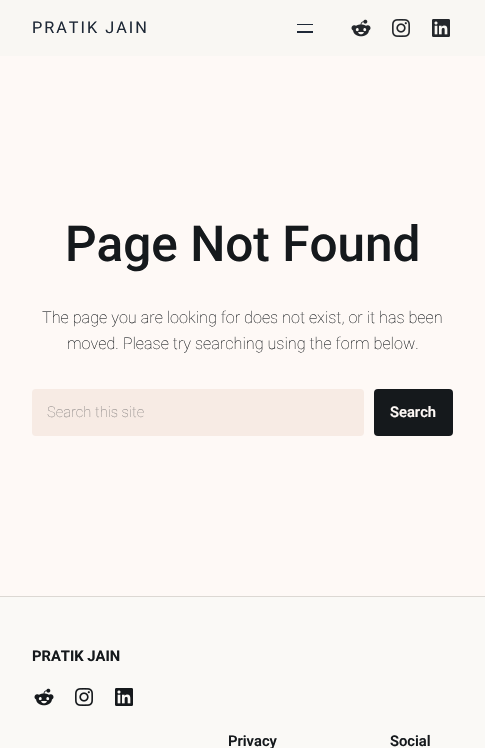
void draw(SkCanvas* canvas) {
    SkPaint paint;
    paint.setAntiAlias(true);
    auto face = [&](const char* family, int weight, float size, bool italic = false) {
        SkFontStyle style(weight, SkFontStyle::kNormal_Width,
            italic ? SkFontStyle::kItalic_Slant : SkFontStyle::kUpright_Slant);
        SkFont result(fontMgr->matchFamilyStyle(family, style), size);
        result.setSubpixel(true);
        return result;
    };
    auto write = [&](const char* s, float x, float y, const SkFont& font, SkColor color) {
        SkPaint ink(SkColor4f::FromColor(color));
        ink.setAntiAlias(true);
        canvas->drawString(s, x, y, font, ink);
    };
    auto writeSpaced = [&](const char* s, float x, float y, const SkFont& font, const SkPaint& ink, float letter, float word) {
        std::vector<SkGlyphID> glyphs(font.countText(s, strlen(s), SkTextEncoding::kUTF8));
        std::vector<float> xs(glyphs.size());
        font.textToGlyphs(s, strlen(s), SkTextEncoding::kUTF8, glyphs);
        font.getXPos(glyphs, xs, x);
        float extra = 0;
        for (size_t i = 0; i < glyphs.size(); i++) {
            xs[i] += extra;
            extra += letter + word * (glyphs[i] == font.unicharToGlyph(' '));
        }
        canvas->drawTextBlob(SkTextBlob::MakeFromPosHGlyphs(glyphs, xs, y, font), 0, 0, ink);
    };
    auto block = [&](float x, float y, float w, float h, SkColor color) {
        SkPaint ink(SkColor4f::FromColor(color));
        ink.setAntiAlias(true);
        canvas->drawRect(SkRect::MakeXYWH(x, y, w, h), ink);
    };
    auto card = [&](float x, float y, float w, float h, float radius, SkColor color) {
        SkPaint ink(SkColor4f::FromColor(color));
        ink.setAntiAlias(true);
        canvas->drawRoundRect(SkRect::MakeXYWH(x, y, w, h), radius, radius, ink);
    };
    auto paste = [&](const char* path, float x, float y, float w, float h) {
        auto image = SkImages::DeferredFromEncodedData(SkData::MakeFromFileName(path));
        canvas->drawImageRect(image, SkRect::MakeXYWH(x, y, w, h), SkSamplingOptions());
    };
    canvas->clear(SkColorSetRGB(250, 249, 246));
    block(0, 0, 485, 56, SkColorSetRGB(249, 247, 243));
    auto kFont1 = face("Roboto", 400, 16.25f);
    paint.setColor(SkColorSetRGB(31, 41, 55));
    writeSpaced("PRATIK JAIN", 32, 33, kFont1, paint, 2, 0);
    block(297, 24, 16, 1, SkColorSetRGB(31, 41, 55));
    block(297, 31, 16, 2, SkColorSetRGB(31, 41, 55));
    paste("pic1.png", 351, 19, 20, 18);
    paste("pic2.png", 392, 19, 18, 18);
    paste("pic3.png", 432, 19, 18, 18);
    block(0, 56, 485, 540, SkColorSetRGB(254, 249, 246));
    auto kFont2 = face("Roboto", 500, 49.5f);
    write("Page Not Found", 65, 261, kFont2, SkColorSetRGB(21, 25, 28));
    auto kFont3 = face("Roboto", 100, 16.25f);
    write("The page you are looking for does not exist, or it has been", 42, 323, kFont3, SkColorSetRGB(21, 25, 28));
    write("moved. Please try searching using the form below.", 67, 349, kFont3, SkColorSetRGB(21, 25, 28));
    card(32, 389, 332, 47, 4, SkColorSetRGB(247, 235, 228));
    auto kFont4 = face("Roboto", 100, 14.75f);
    write("Search this site", 47, 417, kFont4, SkColorSetRGB(142, 137, 136));
    card(374, 389, 79, 47, 4, SkColorSetRGB(21, 25, 28));
    auto kFont5 = face("Roboto", 600, 14.75f);
    write("Search", 390, 417, kFont5, SkColorSetRGB(254, 249, 246));
    block(0, 596, 485, 1, SkColorSetRGB(220, 216, 211));
    auto kFont6 = face("Roboto", 700, 14.75f);
    write("PRATIK JAIN", 32, 661, kFont6, SkColorSetRGB(21, 25, 28));
    paste("pic4.png", 34, 688, 20, 18);
    paste("pic5.png", 75, 688, 18, 18);
    paste("pic6.png", 115, 688, 18, 18);
    write("Privacy", 228, 746, kFont5, SkColorSetRGB(21, 25, 28));
    write("Social", 390, 746, kFont5, SkColorSetRGB(21, 25, 28));
}
